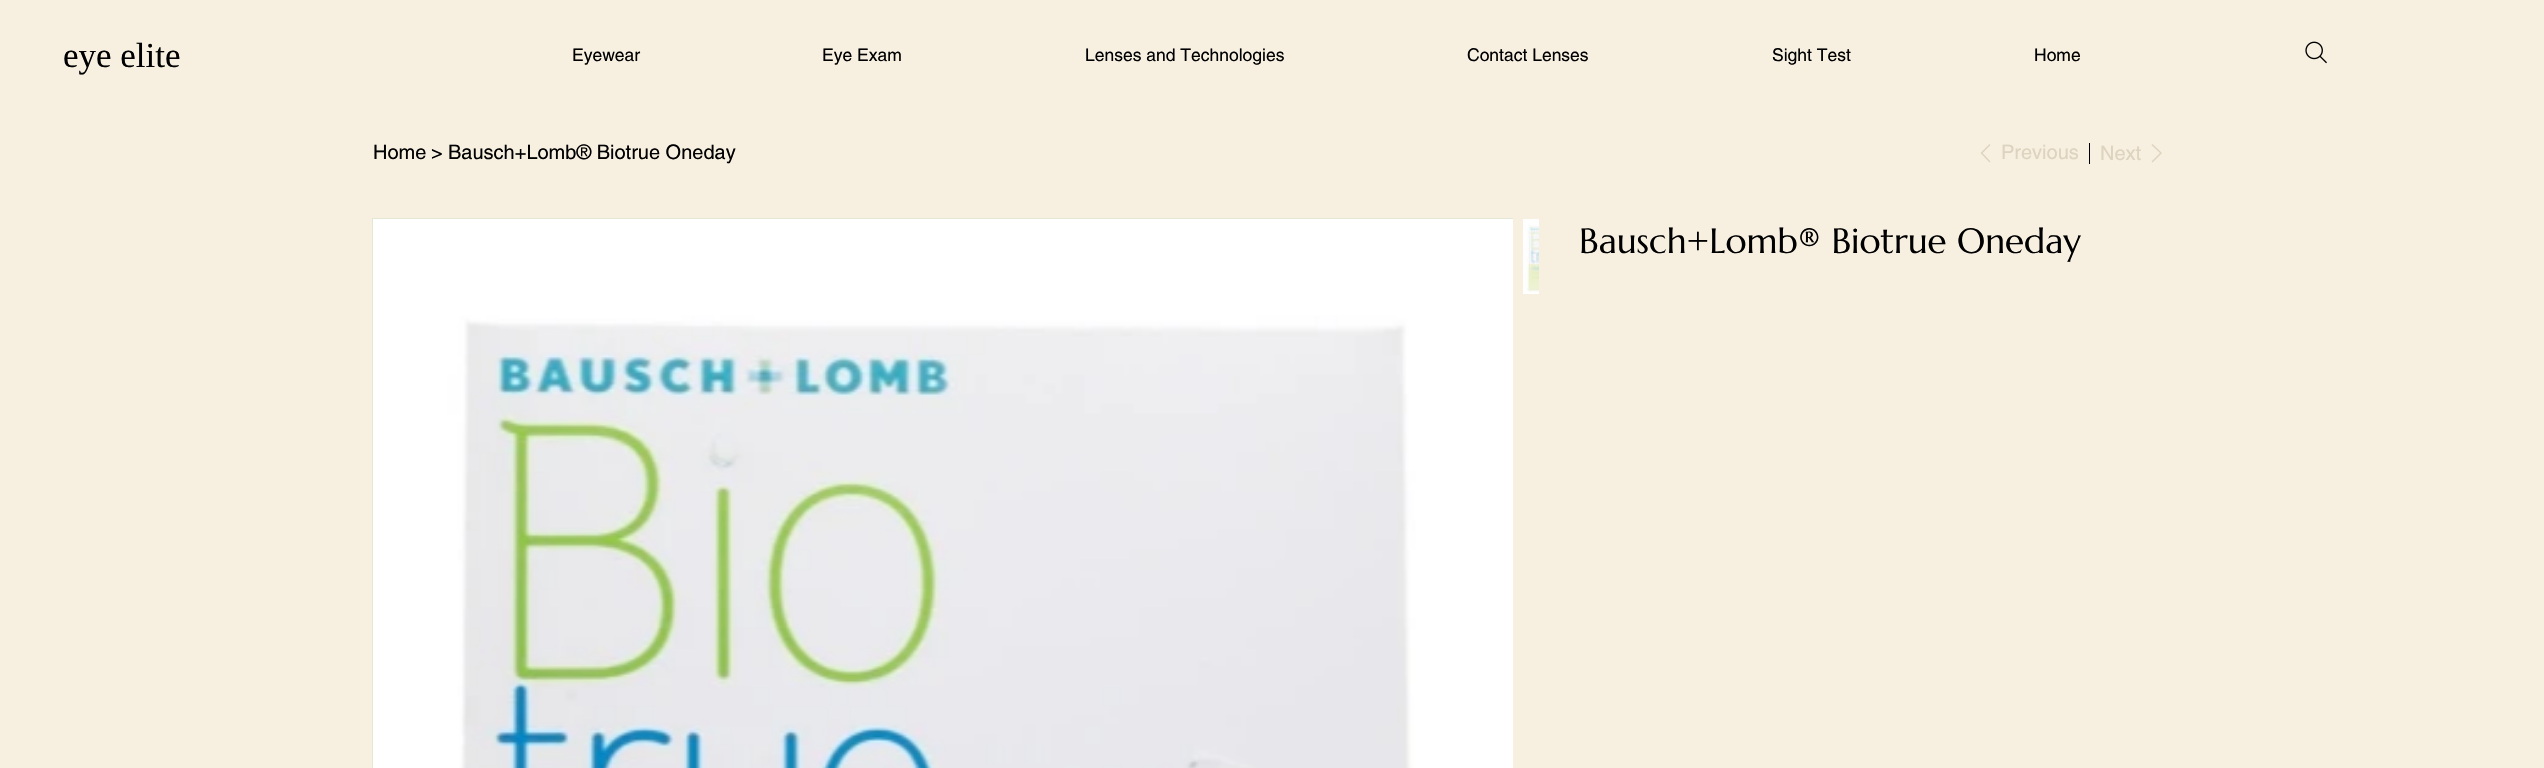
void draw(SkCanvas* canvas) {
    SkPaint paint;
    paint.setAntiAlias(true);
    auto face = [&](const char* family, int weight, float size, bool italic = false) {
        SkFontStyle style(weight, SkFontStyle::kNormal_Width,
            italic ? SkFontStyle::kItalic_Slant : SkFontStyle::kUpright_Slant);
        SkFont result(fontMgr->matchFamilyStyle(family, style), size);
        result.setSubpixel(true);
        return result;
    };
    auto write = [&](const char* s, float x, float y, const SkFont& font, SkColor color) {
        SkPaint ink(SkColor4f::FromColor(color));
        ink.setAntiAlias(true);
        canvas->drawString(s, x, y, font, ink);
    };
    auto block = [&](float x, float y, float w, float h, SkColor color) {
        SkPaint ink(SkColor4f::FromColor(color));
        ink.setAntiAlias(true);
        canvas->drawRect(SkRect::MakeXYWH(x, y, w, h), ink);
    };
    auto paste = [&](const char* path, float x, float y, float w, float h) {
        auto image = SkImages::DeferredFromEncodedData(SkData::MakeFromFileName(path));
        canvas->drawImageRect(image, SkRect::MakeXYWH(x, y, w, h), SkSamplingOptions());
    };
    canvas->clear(SkColorSetRGB(247, 240, 225));
    auto kFont1 = face("Liberation Serif", 400, 35);
    write("eye elite", 63, 67, kFont1, SK_ColorBLACK);
    auto kFont2 = face("helvetica", 400, 17.5f);
    write("Eyewear", 572, 61, kFont2, SK_ColorBLACK);
    write("Eye Exam", 822, 61, kFont2, SK_ColorBLACK);
    write("Lenses and Technologies", 1085, 61, kFont2, SK_ColorBLACK);
    write("Contact Lenses", 1467, 61, kFont2, SK_ColorBLACK);
    write("Sight Test", 1772, 61, kFont2, SK_ColorBLACK);
    write("Home", 2034, 61, kFont2, SK_ColorBLACK);
    paste("pic1.png", 2305, 41, 22, 23);
    auto kFont3 = face("helvetica", 400, 20);
    write("Home", 373, 159, kFont3, SK_ColorBLACK);
    write(">", 431, 159, kFont3, SK_ColorBLACK);
    write("Bausch+Lomb® Biotrue Oneday", 448, 159, kFont3, SK_ColorBLACK);
    paint.setColor(SkColorSetRGB(222, 211, 190));
    canvas->drawPath(SkPathBuilder(SkPathFillType::kEvenOdd).moveTo(1989.5f, 144).lineTo(1990.5f, 145).lineTo(1982.5f, 153).lineTo(1990.5f, 161.5f).lineTo(1989.5f, 162.5f).lineTo(1980.5f, 153).close().detach(), paint);
    write("Previous", 2001, 159, kFont3, SkColorSetRGB(222, 211, 190));
    block(2089, 143, 1, 21, SK_ColorBLACK);
    write("Next", 2100, 160, kFont3, SkColorSetRGB(222, 211, 190));
    canvas->drawPath(SkPathBuilder(SkPathFillType::kEvenOdd).moveTo(2152.5f, 162.5f).lineTo(2151.5f, 161.5f).lineTo(2160, 153).lineTo(2151.5f, 145).lineTo(2152.5f, 144).lineTo(2162, 153).close().detach(), paint);
    block(372, 218, 1141, 550, SkColorSetRGB(227, 232, 212));
    paste("pic2.png", 373, 219, 1140, 549);
    paste("pic3.png", 1523, 219, 16, 75);
    auto kFont4 = face("Marcellus", 400, 35);
    write("Bausch+Lomb® Biotrue Oneday", 1579, 253, kFont4, SK_ColorBLACK);
}
